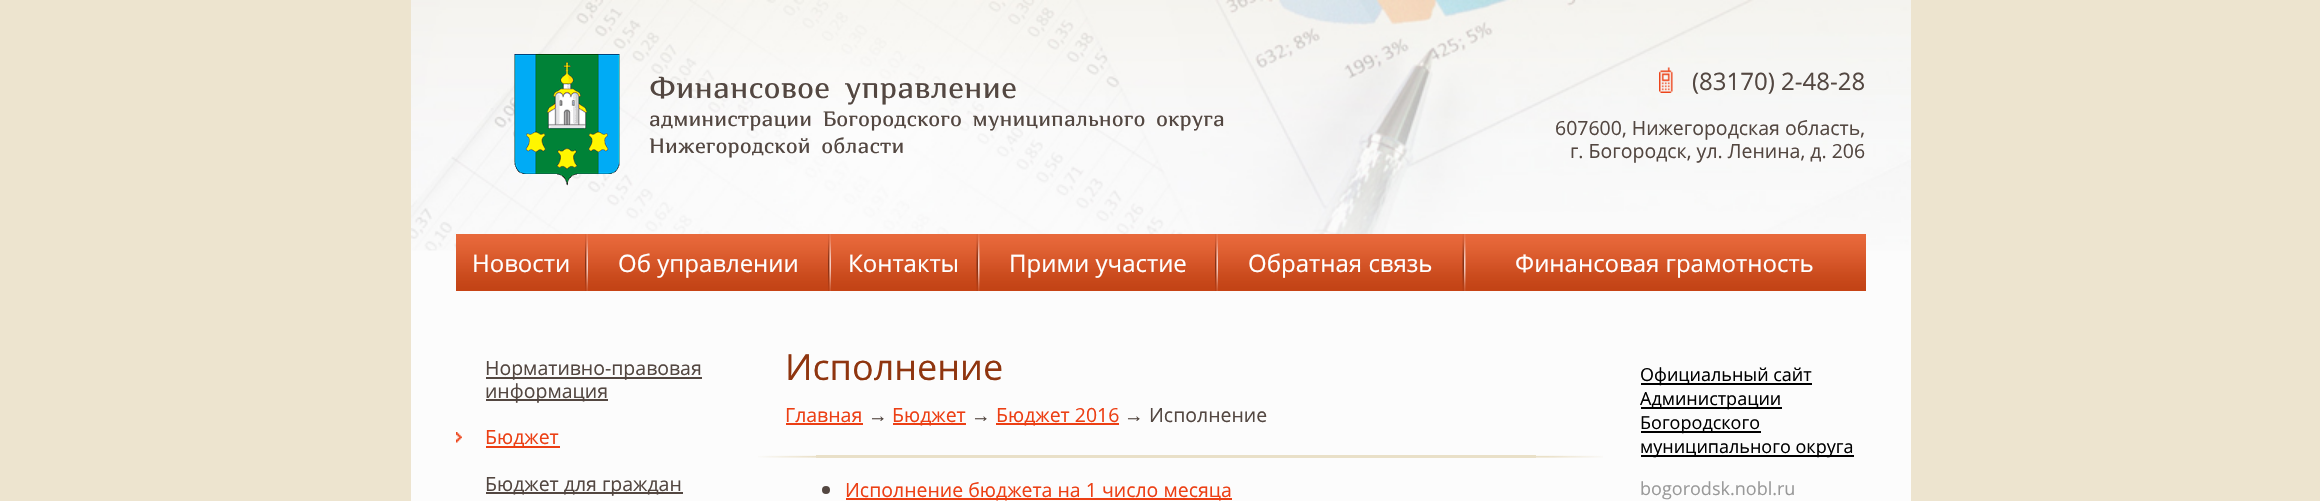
void draw(SkCanvas* canvas) {
    SkPaint paint;
    paint.setAntiAlias(true);
    auto face = [&](const char* family, int weight, float size, bool italic = false) {
        SkFontStyle style(weight, SkFontStyle::kNormal_Width,
            italic ? SkFontStyle::kItalic_Slant : SkFontStyle::kUpright_Slant);
        SkFont result(fontMgr->matchFamilyStyle(family, style), size);
        result.setSubpixel(true);
        return result;
    };
    auto write = [&](const char* s, float x, float y, const SkFont& font, SkColor color) {
        SkPaint ink(SkColor4f::FromColor(color));
        ink.setAntiAlias(true);
        canvas->drawString(s, x, y, font, ink);
    };
    auto block = [&](float x, float y, float w, float h, SkColor color) {
        SkPaint ink(SkColor4f::FromColor(color));
        ink.setAntiAlias(true);
        canvas->drawRect(SkRect::MakeXYWH(x, y, w, h), ink);
    };
    auto paste = [&](const char* path, float x, float y, float w, float h) {
        auto image = SkImages::DeferredFromEncodedData(SkData::MakeFromFileName(path));
        canvas->drawImageRect(image, SkRect::MakeXYWH(x, y, w, h), SkSamplingOptions());
    };
    canvas->clear(SkColorSetRGB(237, 228, 207));
    block(411, 250, 1500, 251, SkColorSetRGB(252, 252, 252));
    paste("pic1.png", 411, 0, 1500, 251);
    paste("pic2.png", 514, 54, 106, 132);
    auto kFont1 = face("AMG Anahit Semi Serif", 400, 30);
    write("Финансовое управление", 649, 98, kFont1, SkColorSetRGB(83, 71, 65));
    auto kFont2 = face("AMG Anahit Semi Serif", 400, 21);
    write("администрации Богородского муниципального округа", 649, 126, kFont2, SkColorSetRGB(83, 71, 65));
    write("Нижегородской области", 649, 153, kFont2, SkColorSetRGB(83, 71, 65));
    paste("pic3.png", 1659, 67, 14, 26);
    auto kFont3 = face("Open Sans", 400, 24);
    write("(83170) 2-48-28", 1692, 90, kFont3, SkColorSetRGB(83, 71, 65));
    auto kFont4 = face("Open Sans", 400, 19.5f);
    write("607600, Нижегородская область,", 1555, 135, kFont4, SkColorSetRGB(83, 71, 65));
    write("г. Богородск, ул. Ленина, д. 206", 1570, 158, kFont4, SkColorSetRGB(83, 71, 65));
    paste("pic4.png", 456, 234, 1410, 57);
    write("Новости", 472, 272, kFont3, SK_ColorWHITE);
    paste("pic5.png", 585, 234, 2, 57);
    paste("pic6.png", 586, 234, 2, 57);
    write("Об управлении", 618, 272, kFont3, SK_ColorWHITE);
    paste("pic5.png", 828, 234, 2, 57);
    paste("pic6.png", 829, 234, 2, 57);
    write("Контакты", 848, 272, kFont3, SK_ColorWHITE);
    paste("pic7.png", 976, 234, 2, 57);
    paste("pic8.png", 978, 234, 2, 57);
    write("Прими участие", 1009, 272, kFont3, SK_ColorWHITE);
    paste("pic5.png", 1215, 234, 2, 57);
    paste("pic6.png", 1216, 234, 2, 57);
    write("Обратная связь", 1248, 272, kFont3, SK_ColorWHITE);
    paste("pic7.png", 1462, 234, 2, 57);
    paste("pic8.png", 1464, 234, 2, 57);
    write("Финансовая грамотность", 1515, 272, kFont3, SK_ColorWHITE);
    block(486, 377, 216, 2, SkColorSetRGB(83, 71, 65));
    write("Нормативно-правовая", 485, 375, kFont4, SkColorSetRGB(83, 71, 65));
    block(486, 399, 122, 2, SkColorSetRGB(83, 71, 65));
    write("информация", 485, 398, kFont4, SkColorSetRGB(83, 71, 65));
    paste("pic9.png", 456, 432, 6, 11);
    block(486, 446, 74, 2, SkColorSetRGB(236, 63, 20));
    write("Бюджет", 485, 444, kFont4, SkColorSetRGB(236, 63, 20));
    block(486, 492, 197, 2, SkColorSetRGB(83, 71, 65));
    write("Бюджет для граждан", 485, 491, kFont4, SkColorSetRGB(83, 71, 65));
    block(816, 455, 720, 3, SkColorSetRGB(233, 224, 200));
    auto kFont5 = face("Open Sans", 400, 36);
    write("Исполнение", 785, 380, kFont5, SkColorSetRGB(143, 53, 15));
    write("Главная", 785, 422, kFont4, SkColorSetRGB(236, 63, 20));
    block(786, 423, 77, 2, SkColorSetRGB(236, 63, 20));
    auto kFont6 = face("Liberation Sans", 400, 19.5f);
    write("→", 868, 422, kFont6, SkColorSetRGB(83, 71, 65));
    block(893, 423, 73, 2, SkColorSetRGB(236, 63, 20));
    write("Бюджет", 892, 422, kFont4, SkColorSetRGB(236, 63, 20));
    write("→", 971, 422, kFont6, SkColorSetRGB(83, 71, 65));
    block(996, 423, 123, 2, SkColorSetRGB(236, 63, 20));
    write("Бюджет 2016", 996, 422, kFont4, SkColorSetRGB(236, 63, 20));
    write("→", 1124, 422, kFont6, SkColorSetRGB(83, 71, 65));
    write("Исполнение", 1149, 422, kFont4, SkColorSetRGB(83, 71, 65));
    paste("pic10.png", 758, 455, 58, 3);
    paste("pic11.png", 1536, 455, 67, 3);
    paint.setColor(SkColorSetRGB(83, 71, 65));
    canvas->drawCircle(826, 490, 4, paint);
    block(846, 498, 386, 2, SkColorSetRGB(236, 63, 20));
    write("Исполнение бюджета на 1 число месяца", 845, 497, kFont4, SkColorSetRGB(236, 63, 20));
    block(1641, 383, 171, 2, SK_ColorBLACK);
    auto kFont7 = face("Open Sans", 400, 18);
    write("Официальный сайт", 1640, 381, kFont7, SK_ColorBLACK);
    block(1641, 407, 141, 2, SK_ColorBLACK);
    write("Администрации", 1640, 405, kFont7, SK_ColorBLACK);
    block(1641, 431, 120, 2, SK_ColorBLACK);
    write("Богородского", 1640, 429, kFont7, SK_ColorBLACK);
    block(1641, 455, 213, 2, SK_ColorBLACK);
    write("муниципального округа", 1640, 453, kFont7, SK_ColorBLACK);
    write("bogorodsk.nobl.ru", 1640, 495, kFont7, SkColorSetRGB(153, 153, 153));
}
